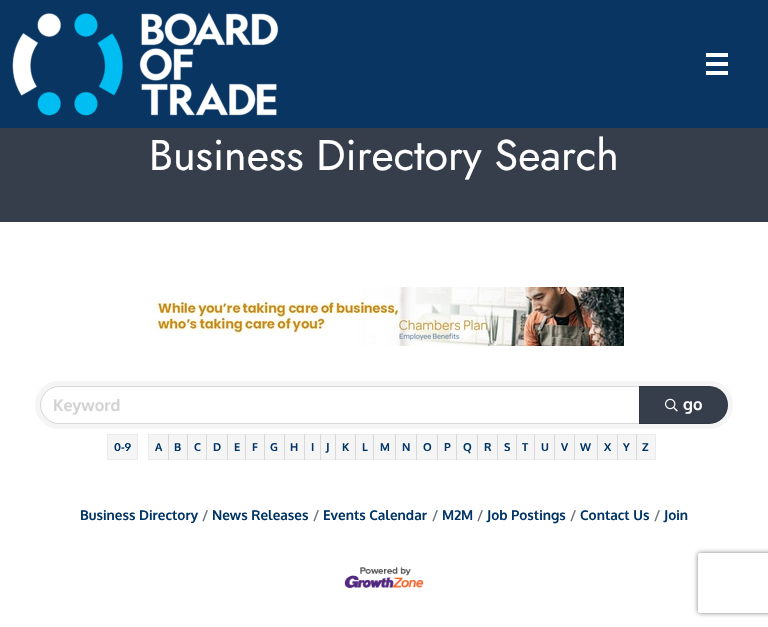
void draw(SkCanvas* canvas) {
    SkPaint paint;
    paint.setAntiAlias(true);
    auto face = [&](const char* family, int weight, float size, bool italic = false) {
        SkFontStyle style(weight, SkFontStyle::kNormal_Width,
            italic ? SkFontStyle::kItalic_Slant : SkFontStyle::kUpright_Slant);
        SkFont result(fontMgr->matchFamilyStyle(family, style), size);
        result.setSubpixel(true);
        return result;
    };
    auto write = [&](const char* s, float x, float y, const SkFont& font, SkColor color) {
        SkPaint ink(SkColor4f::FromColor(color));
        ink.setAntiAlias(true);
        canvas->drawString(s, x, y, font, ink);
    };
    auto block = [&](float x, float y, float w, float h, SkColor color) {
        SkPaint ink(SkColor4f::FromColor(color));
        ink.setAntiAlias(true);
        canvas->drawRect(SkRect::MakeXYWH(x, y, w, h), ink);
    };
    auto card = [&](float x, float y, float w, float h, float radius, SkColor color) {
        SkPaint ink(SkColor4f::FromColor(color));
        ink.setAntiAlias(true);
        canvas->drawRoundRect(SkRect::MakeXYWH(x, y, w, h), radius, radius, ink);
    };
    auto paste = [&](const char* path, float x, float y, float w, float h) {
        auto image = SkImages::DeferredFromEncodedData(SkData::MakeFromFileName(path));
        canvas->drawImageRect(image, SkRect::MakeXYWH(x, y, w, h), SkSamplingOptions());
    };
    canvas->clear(SK_ColorWHITE);
    block(0, 0, 768, 128, SkColorSetRGB(9, 53, 98));
    paste("pic1.png", 12, 12, 267, 104);
    block(706, 53, 22, 4, SK_ColorWHITE);
    block(706, 62, 22, 4, SK_ColorWHITE);
    block(706, 71, 22, 4, SK_ColorWHITE);
    block(0, 128, 768, 94, SkColorSetRGB(54, 61, 75));
    auto kFont1 = face("Jost", 400, 43);
    write("Business Directory Search", 149, 170, kFont1, SK_ColorWHITE);
    paste("pic2.png", 148, 287, 476, 59);
    card(35, 381, 698, 48, 24, SkColorSetRGB(245, 245, 245));
    paint.setColor(SK_ColorWHITE);
    canvas->drawPath(SkPathBuilder().moveTo(59, 387).lineTo(639, 387).lineTo(639, 423).lineTo(59, 423).cubicTo(49, 423, 41, 415, 41, 405).cubicTo(41, 395, 49, 387, 59, 387).close().detach(), paint);
    paint.setStyle(SkPaint::kStroke_Style);
    paint.setStrokeWidth(1);
    paint.setColor(SkColorSetARGB(31, 0, 0, 0));
    canvas->drawPath(SkPathBuilder().moveTo(59, 386.5f).lineTo(639.5f, 386.5f).lineTo(639.5f, 423.5f).lineTo(59, 423.5f).cubicTo(49, 423.5f, 40.5f, 415, 40.5f, 405).cubicTo(40.5f, 395, 49, 386.5f, 59, 386.5f).close().detach(), paint);
    auto kFont2 = face("Oxygen", 700, 16);
    write("Keyword", 53, 411, kFont2, SkColorSetRGB(210, 210, 210));
    paint.setStyle(SkPaint::kFill_Style);
    paint.setColor(SkColorSetRGB(54, 61, 75));
    canvas->drawPath(SkPathBuilder().moveTo(639, 386).lineTo(709, 386).cubicTo(719.5f, 386, 728, 394.5f, 728, 405).cubicTo(728, 415.5f, 719.5f, 424, 709, 424).lineTo(639, 424).close().detach(), paint);
    paint.setStyle(SkPaint::kStroke_Style);
    paint.setColor(SkColorSetARGB(31, 0, 0, 0));
    canvas->drawPath(SkPathBuilder().moveTo(639.5f, 386.5f).lineTo(709, 386.5f).cubicTo(719, 386.5f, 727.5f, 395, 727.5f, 405).cubicTo(727.5f, 415, 719, 423.5f, 709, 423.5f).lineTo(639.5f, 423.5f).close().detach(), paint);
    paste("pic3.png", 665, 398, 13, 14);
    write("go", 683, 410, kFont2, SK_ColorWHITE);
    paint.setStyle(SkPaint::kFill_Style);
    paint.setColor(SkColorSetRGB(245, 245, 245));
    canvas->drawRect(SkRect::MakeXYWH(107.5f, 434.5f, 30, 25), paint);
    paint.setStyle(SkPaint::kStroke_Style);
    paint.setColor(SkColorSetRGB(235, 235, 235));
    canvas->drawRect(SkRect::MakeXYWH(107.5f, 434.5f, 30, 25), paint);
    auto kFont3 = face("Oxygen", 700, 11);
    write("0-9", 114, 451, kFont3, SkColorSetRGB(0, 52, 102));
    paint.setStyle(SkPaint::kFill_Style);
    paint.setColor(SkColorSetRGB(245, 245, 245));
    canvas->drawRect(SkRect::MakeXYWH(148.5f, 434.5f, 20, 25), paint);
    paint.setStyle(SkPaint::kStroke_Style);
    paint.setColor(SkColorSetRGB(235, 235, 235));
    canvas->drawRect(SkRect::MakeXYWH(148.5f, 434.5f, 20, 25), paint);
    write("A", 155, 451, kFont3, SkColorSetRGB(0, 52, 102));
    block(168, 434, 20, 26, SkColorSetARGB(10, 0, 0, 0));
    paint.setColor(SkColorSetARGB(10, 0, 0, 0));
    canvas->drawRect(SkRect::MakeXYWH(168.5f, 434.5f, 19, 25), paint);
    write("B", 174, 451, kFont3, SkColorSetRGB(0, 52, 102));
    block(187, 434, 20, 26, SkColorSetARGB(10, 0, 0, 0));
    canvas->drawRect(SkRect::MakeXYWH(187.5f, 434.5f, 19, 25), paint);
    write("C", 194, 451, kFont3, SkColorSetRGB(0, 52, 102));
    block(206, 434, 22, 26, SkColorSetARGB(10, 0, 0, 0));
    canvas->drawRect(SkRect::MakeXYWH(206.5f, 434.5f, 21, 25), paint);
    write("D", 213, 451, kFont3, SkColorSetRGB(0, 52, 102));
    block(227, 434, 19, 26, SkColorSetARGB(10, 0, 0, 0));
    canvas->drawRect(SkRect::MakeXYWH(227.5f, 434.5f, 18, 25), paint);
    write("E", 234, 451, kFont3, SkColorSetRGB(0, 52, 102));
    block(245, 434, 20, 26, SkColorSetARGB(10, 0, 0, 0));
    canvas->drawRect(SkRect::MakeXYWH(245.5f, 434.5f, 19, 25), paint);
    write("F", 252, 451, kFont3, SkColorSetRGB(0, 52, 102));
    block(264, 434, 21, 26, SkColorSetARGB(10, 0, 0, 0));
    canvas->drawRect(SkRect::MakeXYWH(264.5f, 434.5f, 20, 25), paint);
    write("G", 270, 451, kFont3, SkColorSetRGB(0, 52, 102));
    block(284, 434, 21, 26, SkColorSetARGB(10, 0, 0, 0));
    canvas->drawRect(SkRect::MakeXYWH(284.5f, 434.5f, 20, 25), paint);
    write("H", 290, 451, kFont3, SkColorSetRGB(0, 52, 102));
    block(304, 434, 17, 26, SkColorSetARGB(10, 0, 0, 0));
    canvas->drawRect(SkRect::MakeXYWH(304.5f, 434.5f, 16, 25), paint);
    write("I", 311, 451, kFont3, SkColorSetRGB(0, 52, 102));
    block(320, 434, 16, 26, SkColorSetARGB(10, 0, 0, 0));
    canvas->drawRect(SkRect::MakeXYWH(320.5f, 434.5f, 15, 25), paint);
    write("J", 326, 451, kFont3, SkColorSetRGB(0, 52, 102));
    block(335, 434, 21, 26, SkColorSetARGB(10, 0, 0, 0));
    canvas->drawRect(SkRect::MakeXYWH(335.5f, 434.5f, 20, 25), paint);
    write("K", 342, 451, kFont3, SkColorSetRGB(0, 52, 102));
    block(355, 434, 19, 26, SkColorSetARGB(10, 0, 0, 0));
    canvas->drawRect(SkRect::MakeXYWH(355.5f, 434.5f, 18, 25), paint);
    write("L", 362, 451, kFont3, SkColorSetRGB(0, 52, 102));
    block(373, 434, 23, 26, SkColorSetARGB(10, 0, 0, 0));
    canvas->drawRect(SkRect::MakeXYWH(373.5f, 434.5f, 22, 25), paint);
    write("M", 380, 451, kFont3, SkColorSetRGB(0, 52, 102));
    block(395, 434, 22, 26, SkColorSetARGB(10, 0, 0, 0));
    canvas->drawRect(SkRect::MakeXYWH(395.5f, 434.5f, 21, 25), paint);
    write("N", 402, 451, kFont3, SkColorSetRGB(0, 52, 102));
    block(416, 434, 22, 26, SkColorSetARGB(10, 0, 0, 0));
    canvas->drawRect(SkRect::MakeXYWH(416.5f, 434.5f, 21, 25), paint);
    write("O", 423, 451, kFont3, SkColorSetRGB(0, 52, 102));
    block(437, 434, 20, 26, SkColorSetARGB(10, 0, 0, 0));
    canvas->drawRect(SkRect::MakeXYWH(437.5f, 434.5f, 19, 25), paint);
    write("P", 444, 451, kFont3, SkColorSetRGB(0, 52, 102));
    block(456, 434, 22, 26, SkColorSetARGB(10, 0, 0, 0));
    canvas->drawRect(SkRect::MakeXYWH(456.5f, 434.5f, 21, 25), paint);
    write("Q", 463, 451, kFont3, SkColorSetRGB(0, 52, 102));
    block(477, 434, 21, 26, SkColorSetARGB(10, 0, 0, 0));
    canvas->drawRect(SkRect::MakeXYWH(477.5f, 434.5f, 20, 25), paint);
    write("R", 484, 451, kFont3, SkColorSetRGB(0, 52, 102));
    block(497, 434, 20, 26, SkColorSetARGB(10, 0, 0, 0));
    canvas->drawRect(SkRect::MakeXYWH(497.5f, 434.5f, 19, 25), paint);
    write("S", 504, 451, kFont3, SkColorSetRGB(0, 52, 102));
    block(516, 434, 19, 26, SkColorSetARGB(10, 0, 0, 0));
    canvas->drawRect(SkRect::MakeXYWH(516.5f, 434.5f, 18, 25), paint);
    write("T", 522, 451, kFont3, SkColorSetRGB(0, 52, 102));
    block(534, 434, 21, 26, SkColorSetARGB(10, 0, 0, 0));
    canvas->drawRect(SkRect::MakeXYWH(534.5f, 434.5f, 20, 25), paint);
    write("U", 541, 451, kFont3, SkColorSetRGB(0, 52, 102));
    block(554, 434, 21, 26, SkColorSetARGB(10, 0, 0, 0));
    canvas->drawRect(SkRect::MakeXYWH(554.5f, 434.5f, 20, 25), paint);
    write("V", 561, 451, kFont3, SkColorSetRGB(0, 52, 102));
    block(574, 434, 24, 26, SkColorSetARGB(10, 0, 0, 0));
    canvas->drawRect(SkRect::MakeXYWH(574.5f, 434.5f, 23, 25), paint);
    write("W", 580, 451, kFont3, SkColorSetRGB(0, 52, 102));
    block(597, 434, 21, 26, SkColorSetARGB(10, 0, 0, 0));
    canvas->drawRect(SkRect::MakeXYWH(597.5f, 434.5f, 20, 25), paint);
    write("X", 604, 451, kFont3, SkColorSetRGB(0, 52, 102));
    block(617, 434, 20, 26, SkColorSetARGB(10, 0, 0, 0));
    canvas->drawRect(SkRect::MakeXYWH(617.5f, 434.5f, 19, 25), paint);
    write("Y", 623, 451, kFont3, SkColorSetRGB(0, 52, 102));
    block(636, 434, 20, 26, SkColorSetARGB(10, 0, 0, 0));
    canvas->drawRect(SkRect::MakeXYWH(636.5f, 434.5f, 19, 25), paint);
    write("Z", 642, 451, kFont3, SkColorSetRGB(0, 52, 102));
    auto kFont4 = face("Oxygen", 700, 13.5f);
    write("Business Directory", 80, 520, kFont4, SkColorSetRGB(0, 52, 102));
    write("/", 202, 520, kFont4, SkColorSetRGB(108, 117, 125));
    write("News Releases", 212, 520, kFont4, SkColorSetRGB(0, 52, 102));
    write("/", 313, 520, kFont4, SkColorSetRGB(108, 117, 125));
    write("Events Calendar", 323, 520, kFont4, SkColorSetRGB(0, 52, 102));
    write("/", 432, 520, kFont4, SkColorSetRGB(108, 117, 125));
    write("M2M", 442, 520, kFont4, SkColorSetRGB(0, 52, 102));
    write("/", 477, 520, kFont4, SkColorSetRGB(108, 117, 125));
    write("Job Postings", 487, 520, kFont4, SkColorSetRGB(0, 52, 102));
    write("/", 570, 520, kFont4, SkColorSetRGB(108, 117, 125));
    write("Contact Us", 580, 520, kFont4, SkColorSetRGB(0, 52, 102));
    write("/", 654, 520, kFont4, SkColorSetRGB(108, 117, 125));
    write("Join", 664, 520, kFont4, SkColorSetRGB(0, 52, 102));
    paste("pic4.png", 344, 567, 80, 21);
    canvas->save();
    canvas->clipPath(SkPathBuilder(SkPathFillType::kEvenOdd).moveTo(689, 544).lineTo(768, 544).lineTo(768, 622).lineTo(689, 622).close().moveTo(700, 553).lineTo(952, 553).cubicTo(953, 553, 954, 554, 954, 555).lineTo(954, 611).cubicTo(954, 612, 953, 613, 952, 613).lineTo(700, 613).cubicTo(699, 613, 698, 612, 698, 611).lineTo(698, 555).cubicTo(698, 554, 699, 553, 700, 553).close().detach(), true);
    paint.setStyle(SkPaint::kFill_Style);
    paint.setColor(SkColorSetRGB(128, 128, 128));
    paint.setMaskFilter(SkMaskFilter::MakeBlur(kNormal_SkBlurStyle, 2.5f));
    canvas->drawRoundRect(SkRect::MakeXYWH(698, 553, 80, 60), 2, 2, paint);
    paint.setMaskFilter(nullptr);
    canvas->restore();
}
